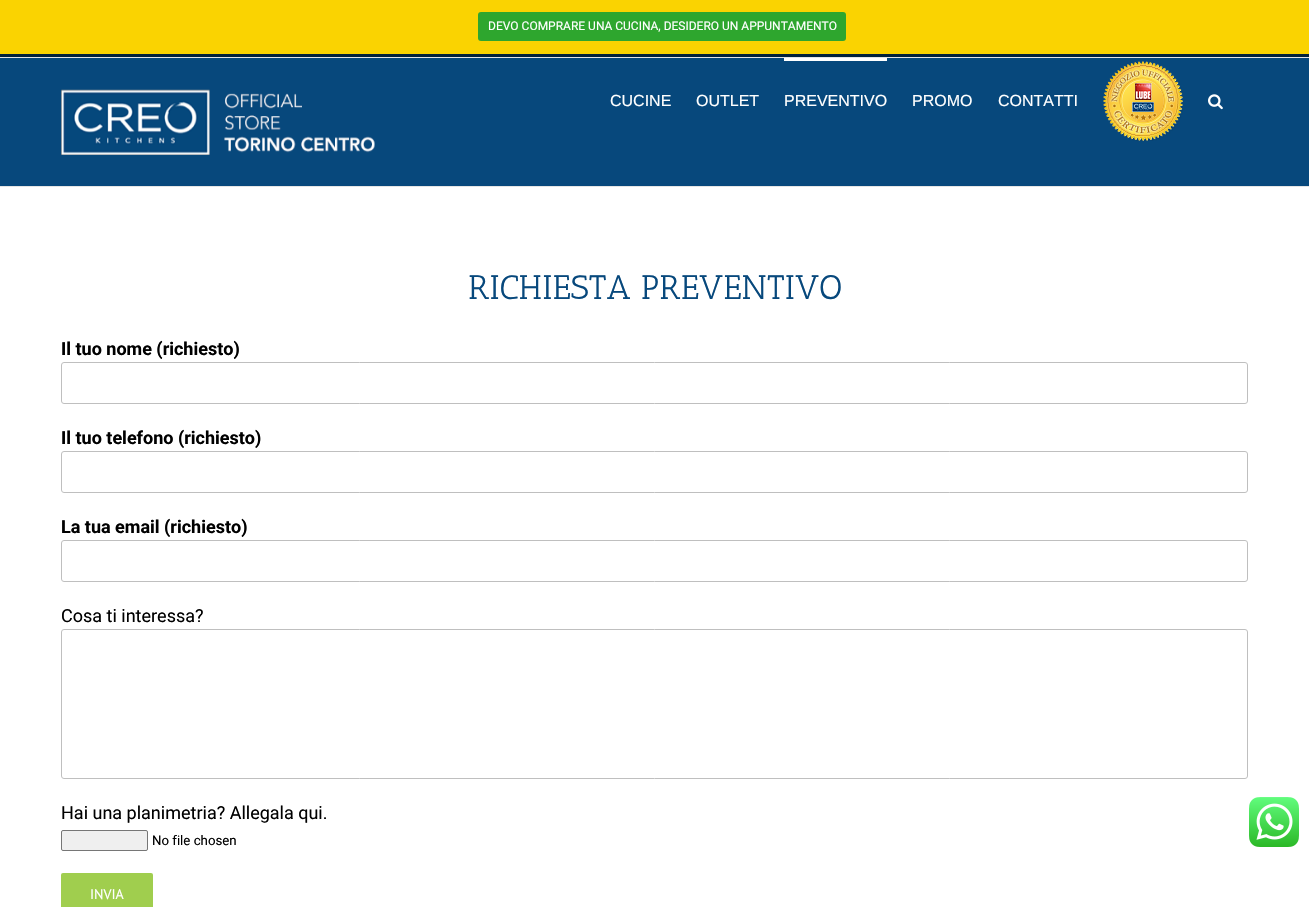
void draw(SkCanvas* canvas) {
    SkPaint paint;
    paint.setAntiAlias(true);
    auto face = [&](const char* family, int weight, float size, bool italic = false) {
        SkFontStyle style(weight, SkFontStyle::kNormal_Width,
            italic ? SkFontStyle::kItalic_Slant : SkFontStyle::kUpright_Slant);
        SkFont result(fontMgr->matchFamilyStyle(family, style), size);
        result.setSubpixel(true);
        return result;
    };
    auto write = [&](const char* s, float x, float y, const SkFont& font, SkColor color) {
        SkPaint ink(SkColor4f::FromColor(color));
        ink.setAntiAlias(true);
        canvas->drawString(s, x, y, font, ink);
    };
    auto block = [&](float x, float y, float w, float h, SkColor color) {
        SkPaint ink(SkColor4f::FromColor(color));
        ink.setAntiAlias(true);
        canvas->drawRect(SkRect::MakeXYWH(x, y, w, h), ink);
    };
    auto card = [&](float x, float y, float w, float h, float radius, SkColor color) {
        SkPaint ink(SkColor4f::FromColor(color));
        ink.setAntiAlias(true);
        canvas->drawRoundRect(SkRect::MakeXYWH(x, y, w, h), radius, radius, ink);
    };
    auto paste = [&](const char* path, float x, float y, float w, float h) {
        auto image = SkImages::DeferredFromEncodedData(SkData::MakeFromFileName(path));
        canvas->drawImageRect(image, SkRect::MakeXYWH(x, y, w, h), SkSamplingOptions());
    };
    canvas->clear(SK_ColorWHITE);
    block(0, 0, 1309, 54, SkColorSetRGB(250, 211, 1));
    card(478, 12, 368, 29, 3, SkColorSetRGB(46, 166, 46));
    auto kFont1 = face("Roboto", 400, 12);
    write("DEVO COMPRARE UNA CUCINA, DESIDERO UN APPUNTAMENTO", 488, 30, kFont1, SK_ColorWHITE);
    paste("pic1.png", 1249, 797, 50, 50);
    block(0, 54, 1309, 3, SkColorSetRGB(1, 33, 60));
    block(0, 57, 1309, 1, SkColorSetRGB(229, 229, 229));
    block(0, 58, 1309, 128, SkColorSetRGB(7, 72, 124));
    block(0, 186, 1309, 1, SkColorSetRGB(229, 229, 229));
    paste("pic2.png", 61, 89, 314, 66);
    auto kFont2 = face("Liberation Sans", 400, 16);
    write("CUCINE", 610, 106, kFont2, SK_ColorWHITE);
    write("OUTLET", 696, 106, kFont2, SK_ColorWHITE);
    block(784, 58, 103, 3, SK_ColorWHITE);
    write("PREVENTIVO", 784, 106, kFont2, SK_ColorWHITE);
    write("PROMO", 912, 106, kFont2, SK_ColorWHITE);
    write("CONTATTI", 998, 106, kFont2, SK_ColorWHITE);
    paste("pic3.png", 1103, 61, 80, 80);
    paste("pic4.png", 1208, 94, 15, 16);
    auto kFont3 = face("Antic Slab", 400, 34);
    write("RICHIESTA PREVENTIVO", 468, 299, kFont3, SkColorSetRGB(7, 72, 124));
    auto kFont4 = face("Roboto", 700, 18);
    write("Il tuo nome (richiesto)", 61, 355, kFont4, SK_ColorBLACK);
    paint.setStyle(SkPaint::kStroke_Style);
    paint.setStrokeWidth(1);
    paint.setColor(SkColorSetRGB(191, 191, 191));
    canvas->drawRoundRect(SkRect::MakeXYWH(61.5f, 362.5f, 1186, 41), 2.5f, 2.5f, paint);
    write("Il tuo telefono (richiesto)", 61, 444, kFont4, SK_ColorBLACK);
    canvas->drawRoundRect(SkRect::MakeXYWH(61.5f, 451.5f, 1186, 41), 2.5f, 2.5f, paint);
    write("La tua email (richiesto)", 61, 533, kFont4, SK_ColorBLACK);
    canvas->drawRoundRect(SkRect::MakeXYWH(61.5f, 540.5f, 1186, 41), 2.5f, 2.5f, paint);
    auto kFont5 = face("Roboto", 400, 18);
    write("Cosa ti interessa?", 61, 622, kFont5, SK_ColorBLACK);
    canvas->drawRoundRect(SkRect::MakeXYWH(61.5f, 629.5f, 1186, 149), 2.5f, 2.5f, paint);
    write("Hai una planimetria? Allegala qui.", 61, 819, kFont5, SK_ColorBLACK);
    paint.setStyle(SkPaint::kFill_Style);
    paint.setColor(SkColorSetRGB(239, 239, 239));
    canvas->drawRoundRect(SkRect::MakeXYWH(61.5f, 830.5f, 86, 20), 1.5f, 1.5f, paint);
    paint.setStyle(SkPaint::kStroke_Style);
    paint.setColor(SkColorSetRGB(118, 118, 118));
    canvas->drawRoundRect(SkRect::MakeXYWH(61.5f, 830.5f, 86, 20), 1.5f, 1.5f, paint);
    auto kFont6 = face("Roboto", 400, 13.25f);
    write("No file chosen", 152, 845, kFont6, SK_ColorBLACK);
    card(61, 873, 92, 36, 2, SkColorSetRGB(160, 206, 78));
    auto kFont7 = face("PT Sans", 400, 14);
    write("INVIA", 90, 899, kFont7, SK_ColorWHITE);
}
